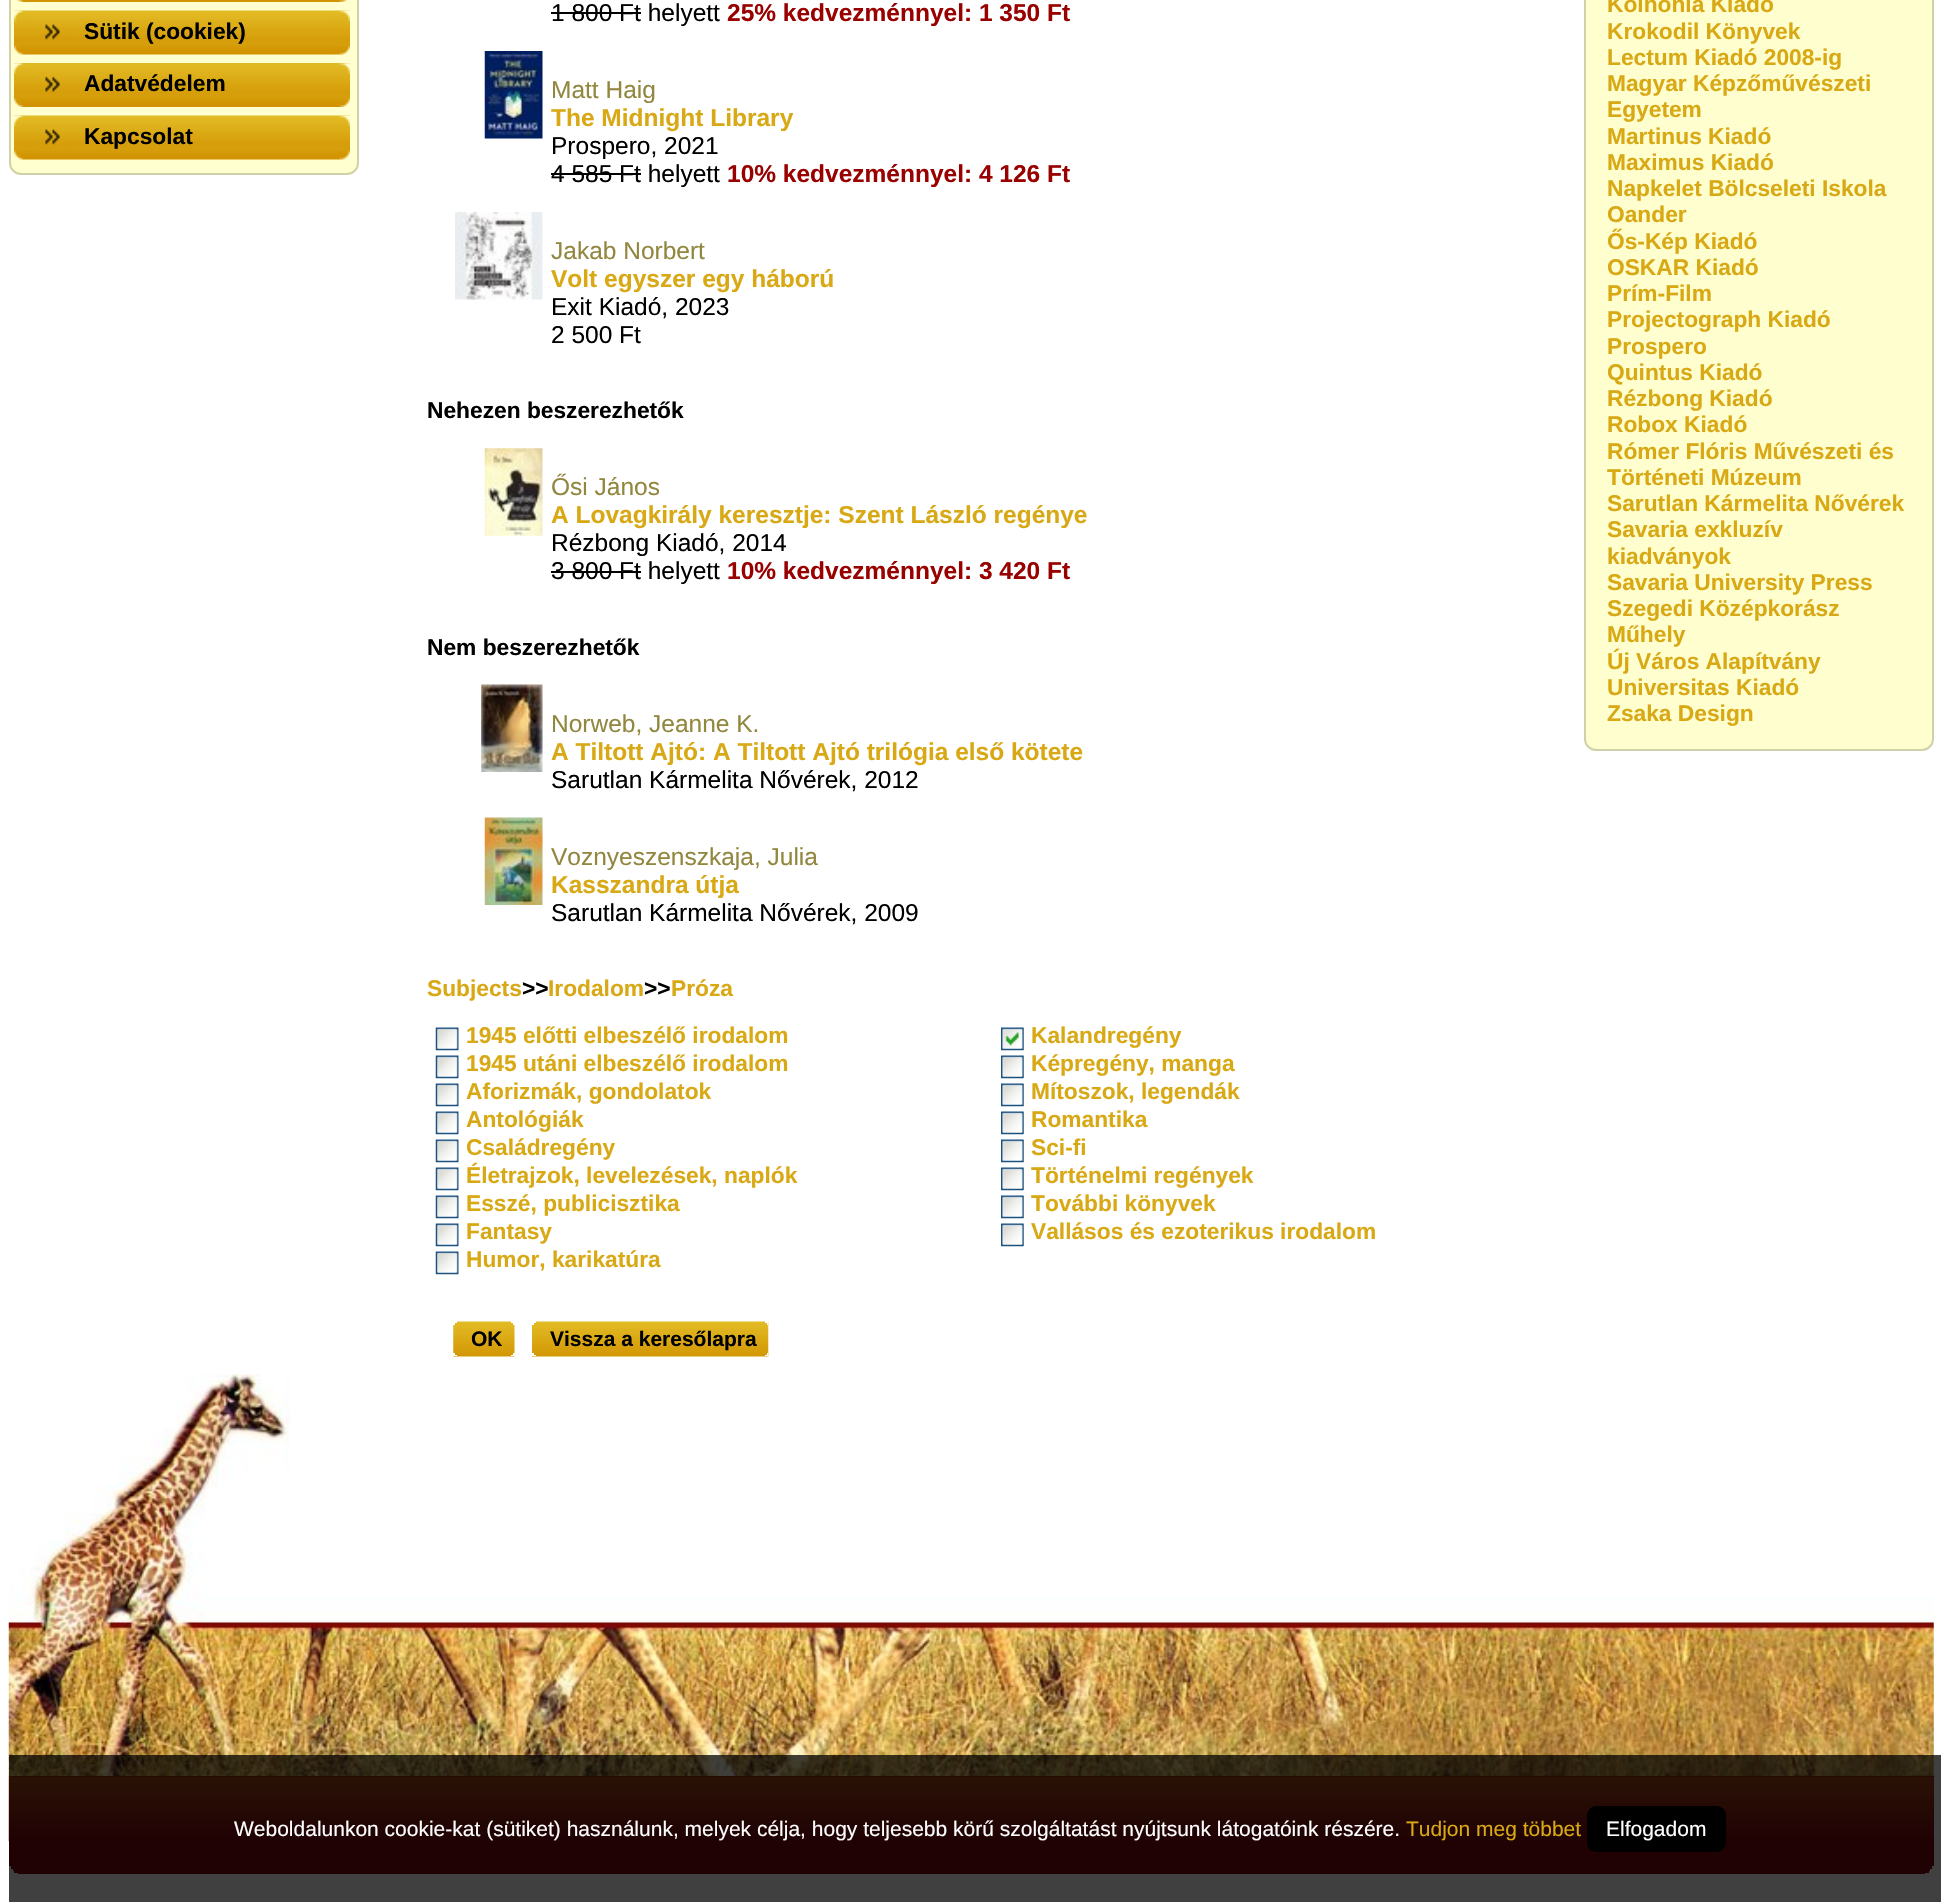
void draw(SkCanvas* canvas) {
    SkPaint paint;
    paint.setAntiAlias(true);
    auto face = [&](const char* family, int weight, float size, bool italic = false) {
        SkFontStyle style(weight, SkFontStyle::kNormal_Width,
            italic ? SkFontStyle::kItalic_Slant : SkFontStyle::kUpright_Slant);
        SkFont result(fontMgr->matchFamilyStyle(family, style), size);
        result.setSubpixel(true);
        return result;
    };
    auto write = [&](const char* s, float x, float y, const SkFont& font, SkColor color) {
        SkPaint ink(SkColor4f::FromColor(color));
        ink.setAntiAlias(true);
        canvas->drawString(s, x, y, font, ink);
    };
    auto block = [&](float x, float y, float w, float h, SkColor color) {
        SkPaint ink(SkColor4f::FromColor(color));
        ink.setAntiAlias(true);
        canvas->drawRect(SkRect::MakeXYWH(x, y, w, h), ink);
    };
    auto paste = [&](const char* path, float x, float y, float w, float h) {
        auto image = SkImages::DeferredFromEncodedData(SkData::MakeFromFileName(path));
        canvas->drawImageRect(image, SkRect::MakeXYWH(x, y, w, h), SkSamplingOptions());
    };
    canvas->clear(SK_ColorWHITE);
    paint.setColor(SkColorSetRGB(255, 255, 207));
    canvas->drawRoundRect(SkRect::MakeXYWH(10, -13, 348, 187), 11, 11, paint);
    paint.setStyle(SkPaint::kStroke_Style);
    paint.setStrokeWidth(2);
    paint.setColor(SkColorSetRGB(209, 209, 169));
    canvas->drawRoundRect(SkRect::MakeXYWH(10, -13, 348, 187), 11, 11, paint);
    paste("pic1.png", 17, 0, 330, 2);
    paste("pic2.png", 14, 10, 336, 45);
    paste("pic3.png", 14, 10, 336, 36);
    auto kFont1 = face("Liberation Sans", 700, 22.75f);
    write("Sütik (cookiek)", 84, 39, kFont1, SK_ColorBLACK);
    paste("pic4.png", 14, 63, 336, 44);
    paste("pic5.png", 14, 63, 336, 36);
    write("Adatvédelem", 84, 91, kFont1, SK_ColorBLACK);
    paste("pic2.png", 14, 115, 336, 45);
    paste("pic6.png", 14, 115, 336, 36);
    write("Kapcsolat", 84, 144, kFont1, SK_ColorBLACK);
    auto kFont2 = face("Liberation Sans", 400, 24.5f);
    write("1 800 Ft helyett", 551, 21, kFont2, SK_ColorBLACK);
    block(551, 12, 90, 2, SK_ColorBLACK);
    auto kFont3 = face("Liberation Sans", 700, 24.5f);
    write("25% kedvezménnyel: 1 350 Ft", 727, 21, kFont3, SkColorSetRGB(153, 0, 0));
    paste("pic7.png", 484, 51, 59, 88);
    write("Matt Haig", 551, 98, kFont2, SkColorSetRGB(146, 135, 63));
    write("The Midnight Library", 551, 126, kFont3, SkColorSetRGB(216, 169, 21));
    write("Prospero, 2021", 551, 154, kFont2, SK_ColorBLACK);
    write("4 585 Ft helyett", 551, 182, kFont2, SK_ColorBLACK);
    block(551, 173, 90, 2, SK_ColorBLACK);
    write("10% kedvezménnyel: 4 126 Ft", 727, 182, kFont3, SkColorSetRGB(153, 0, 0));
    paste("pic8.png", 455, 212, 88, 88);
    write("Jakab Norbert", 551, 259, kFont2, SkColorSetRGB(146, 135, 63));
    write("Volt egyszer egy háború", 551, 287, kFont3, SkColorSetRGB(216, 169, 21));
    write("Exit Kiadó, 2023", 551, 315, kFont2, SK_ColorBLACK);
    write("2 500 Ft", 551, 343, kFont2, SK_ColorBLACK);
    write("Nehezen beszerezhetők", 427, 418, kFont1, SK_ColorBLACK);
    paste("pic9.png", 484, 448, 59, 88);
    write("Ősi János", 551, 495, kFont2, SkColorSetRGB(146, 135, 63));
    write("A Lovagkirály keresztje: Szent László regénye", 551, 523, kFont3, SkColorSetRGB(216, 169, 21));
    write("Rézbong Kiadó, 2014", 551, 551, kFont2, SK_ColorBLACK);
    write("3 800 Ft helyett", 551, 579, kFont2, SK_ColorBLACK);
    block(551, 571, 90, 2, SK_ColorBLACK);
    write("10% kedvezménnyel: 3 420 Ft", 727, 579, kFont3, SkColorSetRGB(153, 0, 0));
    write("Nem beszerezhetők", 427, 655, kFont1, SK_ColorBLACK);
    paste("pic10.png", 481, 684, 62, 88);
    write("Norweb, Jeanne K.", 551, 732, kFont2, SkColorSetRGB(146, 135, 63));
    write("A Tiltott Ajtó: A Tiltott Ajtó trilógia első kötete", 551, 760, kFont3, SkColorSetRGB(216, 169, 21));
    write("Sarutlan Kármelita Nővérek, 2012", 551, 788, kFont2, SK_ColorBLACK);
    paste("pic11.png", 484, 817, 59, 88);
    write("Voznyeszenszkaja, Julia", 551, 865, kFont2, SkColorSetRGB(146, 135, 63));
    write("Kasszandra útja", 551, 893, kFont3, SkColorSetRGB(216, 169, 21));
    write("Sarutlan Kármelita Nővérek, 2009", 551, 921, kFont2, SK_ColorBLACK);
    write("Subjects", 427, 996, kFont1, SkColorSetRGB(216, 169, 21));
    write(">>", 522, 996, kFont1, SK_ColorBLACK);
    write("Irodalom", 548, 996, kFont1, SkColorSetRGB(216, 169, 21));
    write(">>", 644, 996, kFont1, SK_ColorBLACK);
    write("Próza", 671, 996, kFont1, SkColorSetRGB(216, 169, 21));
    paste("pic12.png", 435, 1027, 24, 24);
    paste("pic13.png", 437, 1028, 21, 21);
    write("1945 előtti elbeszélő irodalom", 466, 1043, kFont1, SkColorSetRGB(216, 169, 21));
    paste("pic14.png", 1001, 1027, 23, 24);
    paste("pic15.png", 1002, 1028, 21, 21);
    write("Kalandregény", 1031, 1043, kFont1, SkColorSetRGB(216, 169, 21));
    paste("pic12.png", 435, 1055, 24, 24);
    paste("pic13.png", 437, 1056, 21, 21);
    write("1945 utáni elbeszélő irodalom", 466, 1071, kFont1, SkColorSetRGB(216, 169, 21));
    paste("pic14.png", 1001, 1055, 23, 24);
    paste("pic16.png", 1002, 1056, 21, 21);
    write("Képregény, manga", 1031, 1071, kFont1, SkColorSetRGB(216, 169, 21));
    paste("pic12.png", 435, 1083, 24, 24);
    paste("pic13.png", 437, 1084, 21, 21);
    write("Aforizmák, gondolatok", 466, 1099, kFont1, SkColorSetRGB(216, 169, 21));
    paste("pic14.png", 1001, 1083, 23, 24);
    paste("pic16.png", 1002, 1084, 21, 21);
    write("Mítoszok, legendák", 1031, 1099, kFont1, SkColorSetRGB(216, 169, 21));
    paste("pic12.png", 435, 1111, 24, 24);
    paste("pic13.png", 437, 1112, 21, 21);
    write("Antológiák", 466, 1127, kFont1, SkColorSetRGB(216, 169, 21));
    paste("pic14.png", 1001, 1111, 23, 24);
    paste("pic16.png", 1002, 1112, 21, 21);
    write("Romantika", 1031, 1127, kFont1, SkColorSetRGB(216, 169, 21));
    paste("pic12.png", 435, 1139, 24, 24);
    paste("pic13.png", 437, 1140, 21, 21);
    write("Családregény", 466, 1155, kFont1, SkColorSetRGB(216, 169, 21));
    paste("pic14.png", 1001, 1139, 23, 24);
    paste("pic16.png", 1002, 1140, 21, 21);
    write("Sci-fi", 1031, 1155, kFont1, SkColorSetRGB(216, 169, 21));
    paste("pic12.png", 435, 1167, 24, 24);
    paste("pic13.png", 437, 1168, 21, 21);
    write("Életrajzok, levelezések, naplók", 466, 1183, kFont1, SkColorSetRGB(216, 169, 21));
    paste("pic14.png", 1001, 1167, 23, 24);
    paste("pic16.png", 1002, 1168, 21, 21);
    write("Történelmi regények", 1031, 1183, kFont1, SkColorSetRGB(216, 169, 21));
    paste("pic12.png", 435, 1195, 24, 24);
    paste("pic13.png", 437, 1196, 21, 21);
    write("Esszé, publicisztika", 466, 1211, kFont1, SkColorSetRGB(216, 169, 21));
    paste("pic14.png", 1001, 1195, 23, 24);
    paste("pic16.png", 1002, 1196, 21, 21);
    write("További könyvek", 1031, 1211, kFont1, SkColorSetRGB(216, 169, 21));
    paste("pic12.png", 435, 1223, 24, 24);
    paste("pic13.png", 437, 1224, 21, 21);
    write("Fantasy", 466, 1239, kFont1, SkColorSetRGB(216, 169, 21));
    paste("pic14.png", 1001, 1223, 23, 24);
    paste("pic16.png", 1002, 1224, 21, 21);
    write("Vallásos és ezoterikus irodalom", 1031, 1239, kFont1, SkColorSetRGB(216, 169, 21));
    paste("pic12.png", 435, 1251, 24, 24);
    paste("pic13.png", 437, 1252, 21, 21);
    write("Humor, karikatúra", 466, 1267, kFont1, SkColorSetRGB(216, 169, 21));
    paste("pic17.png", 453, 1321, 62, 36);
    block(511, 1321, 4, 2, SK_ColorWHITE);
    block(453, 1321, 4, 2, SK_ColorWHITE);
    block(513, 1323, 2, 2, SK_ColorWHITE);
    block(453, 1323, 2, 2, SK_ColorWHITE);
    auto kFont4 = face("Liberation Sans", 700, 21);
    write("OK", 471, 1346, kFont4, SK_ColorBLACK);
    block(513, 1353, 2, 2, SK_ColorWHITE);
    block(453, 1353, 2, 2, SK_ColorWHITE);
    block(511, 1355, 4, 1, SK_ColorWHITE);
    block(453, 1355, 4, 1, SK_ColorWHITE);
    paste("pic18.png", 532, 1321, 237, 36);
    block(765, 1321, 3, 2, SK_ColorWHITE);
    block(532, 1321, 4, 2, SK_ColorWHITE);
    block(767, 1323, 1, 2, SK_ColorWHITE);
    block(532, 1323, 2, 2, SK_ColorWHITE);
    write("Vissza a keresőlapra", 550, 1346, kFont4, SK_ColorBLACK);
    block(767, 1353, 1, 2, SK_ColorWHITE);
    block(532, 1353, 2, 2, SK_ColorWHITE);
    block(765, 1355, 3, 1, SK_ColorWHITE);
    block(532, 1355, 4, 1, SK_ColorWHITE);
    paint.setStyle(SkPaint::kFill_Style);
    paint.setColor(SkColorSetRGB(255, 254, 206));
    canvas->drawRoundRect(SkRect::MakeXYWH(1585, -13, 348, 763), 11, 11, paint);
    paint.setStyle(SkPaint::kStroke_Style);
    paint.setColor(SkColorSetRGB(209, 209, 169));
    canvas->drawRoundRect(SkRect::MakeXYWH(1585, -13, 348, 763), 11, 11, paint);
    write("Koinónia Kiadó", 1607, 12, kFont1, SkColorSetRGB(216, 169, 21));
    write("Krokodil Könyvek", 1607, 39, kFont1, SkColorSetRGB(216, 169, 21));
    write("Lectum Kiadó 2008-ig", 1607, 65, kFont1, SkColorSetRGB(216, 169, 21));
    write("Magyar Képzőművészeti", 1607, 91, kFont1, SkColorSetRGB(216, 169, 21));
    write("Egyetem", 1607, 117, kFont1, SkColorSetRGB(216, 169, 21));
    write("Martinus Kiadó", 1607, 144, kFont1, SkColorSetRGB(216, 169, 21));
    write("Maximus Kiadó", 1607, 170, kFont1, SkColorSetRGB(216, 169, 21));
    write("Napkelet Bölcseleti Iskola", 1607, 196, kFont1, SkColorSetRGB(216, 169, 21));
    write("Oander", 1607, 222, kFont1, SkColorSetRGB(216, 169, 21));
    write("Ős-Kép Kiadó", 1607, 249, kFont1, SkColorSetRGB(216, 169, 21));
    write("OSKAR Kiadó", 1607, 275, kFont1, SkColorSetRGB(216, 169, 21));
    write("Prím-Film", 1607, 301, kFont1, SkColorSetRGB(216, 169, 21));
    write("Projectograph Kiadó", 1607, 327, kFont1, SkColorSetRGB(216, 169, 21));
    write("Prospero", 1607, 354, kFont1, SkColorSetRGB(216, 169, 21));
    write("Quintus Kiadó", 1607, 380, kFont1, SkColorSetRGB(216, 169, 21));
    write("Rézbong Kiadó", 1607, 406, kFont1, SkColorSetRGB(216, 169, 21));
    write("Robox Kiadó", 1607, 432, kFont1, SkColorSetRGB(216, 169, 21));
    write("Rómer Flóris Művészeti és", 1607, 459, kFont1, SkColorSetRGB(216, 169, 21));
    write("Történeti Múzeum", 1607, 485, kFont1, SkColorSetRGB(216, 169, 21));
    write("Sarutlan Kármelita Nővérek", 1607, 511, kFont1, SkColorSetRGB(216, 169, 21));
    write("Savaria exkluzív", 1607, 537, kFont1, SkColorSetRGB(216, 169, 21));
    write("kiadványok", 1607, 564, kFont1, SkColorSetRGB(216, 169, 21));
    write("Savaria University Press", 1607, 590, kFont1, SkColorSetRGB(216, 169, 21));
    write("Szegedi Középkorász", 1607, 616, kFont1, SkColorSetRGB(216, 169, 21));
    write("Műhely", 1607, 642, kFont1, SkColorSetRGB(216, 169, 21));
    write("Új Város Alapítvány", 1607, 669, kFont1, SkColorSetRGB(216, 169, 21));
    write("Universitas Kiadó", 1607, 695, kFont1, SkColorSetRGB(216, 169, 21));
    write("Zsaka Design", 1607, 721, kFont1, SkColorSetRGB(216, 169, 21));
    paste("pic19.png", 8, 1374, 1926, 403);
    block(9, 1776, 1925, 98, SkColorSetRGB(128, 7, 15));
    paste("pic20.png", 8, 1776, 1926, 66);
    block(1932, 1866, 2, 3, SK_ColorWHITE);
    block(9, 1866, 2, 3, SK_ColorWHITE);
    block(1930, 1869, 4, 2, SK_ColorWHITE);
    block(9, 1869, 4, 2, SK_ColorWHITE);
    block(1929, 1871, 5, 2, SK_ColorWHITE);
    block(9, 1871, 5, 2, SK_ColorWHITE);
    block(1925, 1873, 9, 1, SK_ColorWHITE);
    block(9, 1873, 9, 1, SK_ColorWHITE);
    block(9, 1755, 1932, 147, SkColorSetARGB(191, 0, 0, 0));
    auto kFont5 = face("Liberation Sans", 400, 21);
    write("Weboldalunkon cookie-kat (sütiket) használunk, melyek célja, hogy teljesebb körű szolgáltatást nyújtsunk látogatóink részére.", 234, 1836, kFont5, SK_ColorWHITE);
    write("Tudjon meg többet", 1406, 1836, kFont5, SkColorSetRGB(216, 169, 21));
    paint.setStyle(SkPaint::kFill_Style);
    paint.setColor(SK_ColorBLACK);
    canvas->drawRoundRect(SkRect::MakeXYWH(1588, 1807, 137, 44), 8, 8, paint);
    paint.setStyle(SkPaint::kStroke_Style);
    canvas->drawRoundRect(SkRect::MakeXYWH(1588, 1807, 137, 44), 8, 8, paint);
    write("Elfogadom", 1606, 1836, kFont5, SK_ColorWHITE);
}
